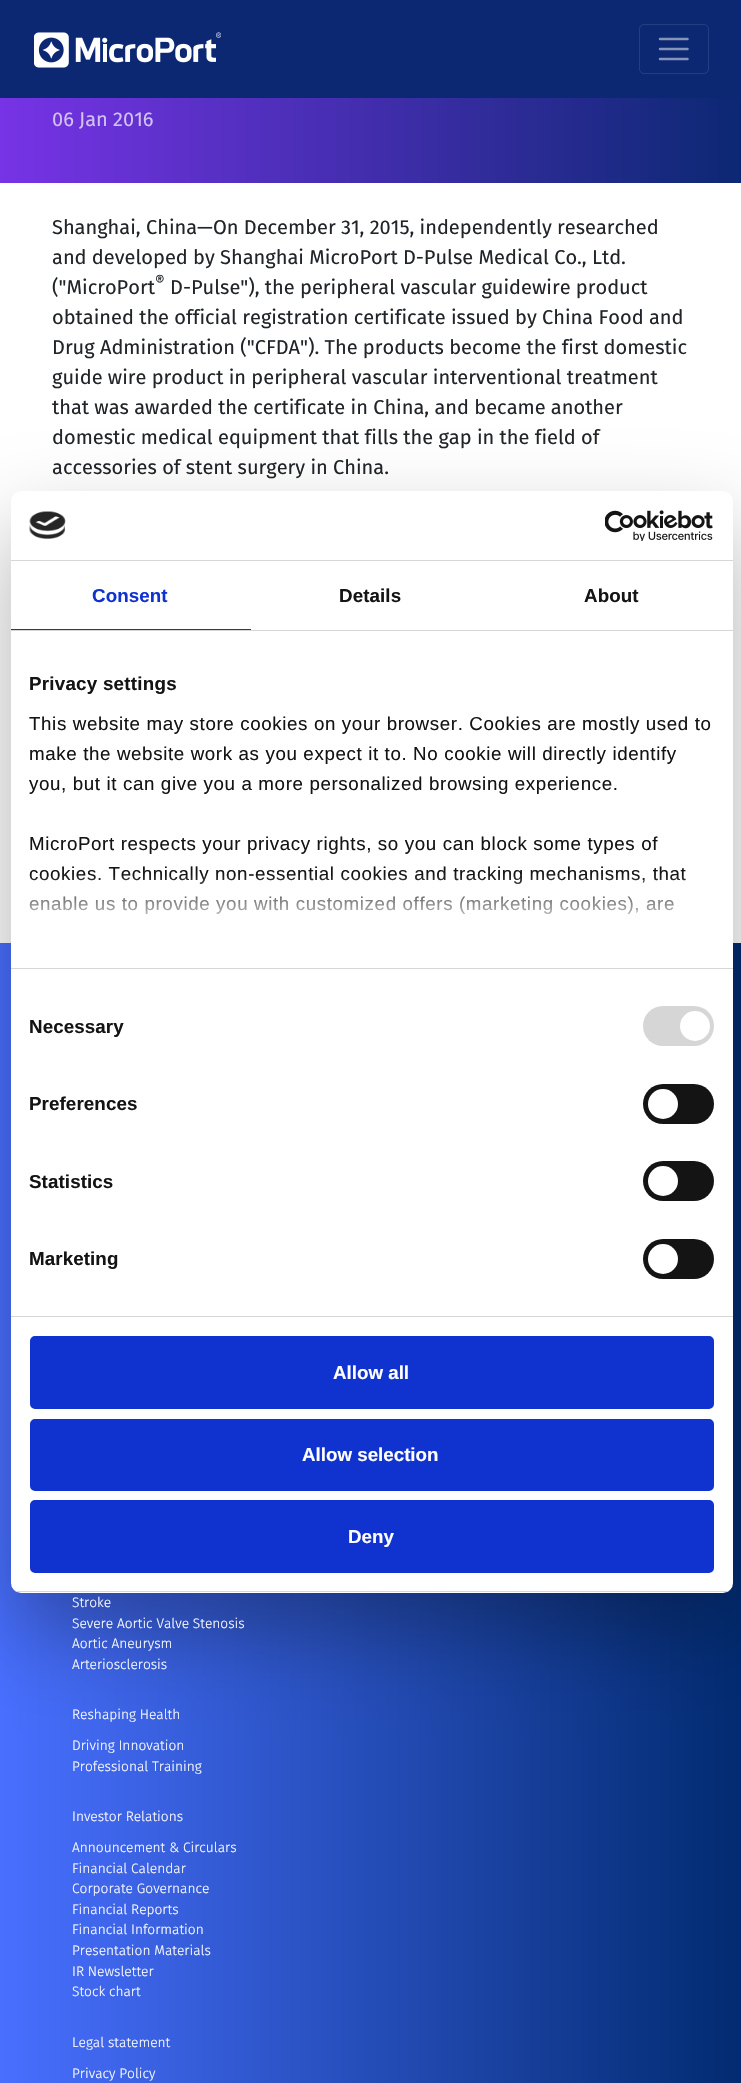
void draw(SkCanvas* canvas) {
    SkPaint paint;
    paint.setAntiAlias(true);
    auto face = [&](const char* family, int weight, float size, bool italic = false) {
        SkFontStyle style(weight, SkFontStyle::kNormal_Width,
            italic ? SkFontStyle::kItalic_Slant : SkFontStyle::kUpright_Slant);
        SkFont result(fontMgr->matchFamilyStyle(family, style), size);
        result.setSubpixel(true);
        return result;
    };
    auto write = [&](const char* s, float x, float y, const SkFont& font, SkColor color) {
        SkPaint ink(SkColor4f::FromColor(color));
        ink.setAntiAlias(true);
        canvas->drawString(s, x, y, font, ink);
    };
    auto writeSpaced = [&](const char* s, float x, float y, const SkFont& font, const SkPaint& ink, float letter, float word) {
        std::vector<SkGlyphID> glyphs(font.countText(s, strlen(s), SkTextEncoding::kUTF8));
        std::vector<float> xs(glyphs.size());
        font.textToGlyphs(s, strlen(s), SkTextEncoding::kUTF8, glyphs);
        font.getXPos(glyphs, xs, x);
        float extra = 0;
        for (size_t i = 0; i < glyphs.size(); i++) {
            xs[i] += extra;
            extra += letter + word * (glyphs[i] == font.unicharToGlyph(' '));
        }
        canvas->drawTextBlob(SkTextBlob::MakeFromPosHGlyphs(glyphs, xs, y, font), 0, 0, ink);
    };
    auto block = [&](float x, float y, float w, float h, SkColor color) {
        SkPaint ink(SkColor4f::FromColor(color));
        ink.setAntiAlias(true);
        canvas->drawRect(SkRect::MakeXYWH(x, y, w, h), ink);
    };
    auto card = [&](float x, float y, float w, float h, float radius, SkColor color) {
        SkPaint ink(SkColor4f::FromColor(color));
        ink.setAntiAlias(true);
        canvas->drawRoundRect(SkRect::MakeXYWH(x, y, w, h), radius, radius, ink);
    };
    auto paste = [&](const char* path, float x, float y, float w, float h) {
        auto image = SkImages::DeferredFromEncodedData(SkData::MakeFromFileName(path));
        canvas->drawImageRect(image, SkRect::MakeXYWH(x, y, w, h), SkSamplingOptions());
    };
    canvas->clear(SK_ColorWHITE);
    block(0, 0, 741, 98, SkColorSetRGB(12, 40, 115));
    paste("pic1.png", 34, 32, 187, 36);
    paint.setStyle(SkPaint::kStroke_Style);
    paint.setStrokeWidth(1);
    paint.setColor(SkColorSetRGB(36, 62, 129));
    canvas->drawRoundRect(SkRect::MakeXYWH(639.5f, 24.5f, 69, 49), 4.5f, 4.5f, paint);
    paint.setStrokeWidth(2.5f);
    paint.setStrokeCap(SkPaint::kRound_Cap);
    paint.setColor(SkColorSetRGB(134, 148, 185));
    canvas->drawPath(SkPathBuilder().moveTo(660, 39).lineTo(687.5f, 39).moveTo(660, 49).lineTo(687.5f, 49).moveTo(660, 59).lineTo(687.5f, 59).detach(), paint);
    paint.setStyle(SkPaint::kFill_Style);
    {
        const SkColor colors[] = {SkColorSetRGB(119, 51, 230), SkColorSetRGB(12, 40, 115)};
        const float stops[] = {0, 1};
        const SkPoint ends[] = {{0, -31}, {741, -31}};
        paint.setShader(SkGradientShader::MakeLinear(ends, colors, stops, 2, SkTileMode::kClamp));
        paint.setAlpha(255);
    }
    canvas->drawRect(SkRect::MakeXYWH(0, 98, 741, 85), paint);
    auto kFont1 = face("Fira Sans", 400, 20);
    write("06 Jan 2016", 52, 126, kFont1, SkColorSetRGB(210, 193, 243));
    write("Shanghai, China—On December 31, 2015, independently researched", 52, 234, kFont1, SkColorSetRGB(33, 37, 41));
    write("and developed by Shanghai MicroPort D-Pulse Medical Co., Ltd.", 52, 264, kFont1, SkColorSetRGB(33, 37, 41));
    write("(\"MicroPort", 52, 294, kFont1, SkColorSetRGB(33, 37, 41));
    auto kFont2 = face("Fira Sans", 400, 15);
    write("®", 155, 286, kFont2, SkColorSetRGB(33, 37, 41));
    write("D-Pulse\"), the peripheral vascular guidewire product", 170, 294, kFont1, SkColorSetRGB(33, 37, 41));
    write("obtained the official registration certificate issued by China Food and", 52, 324, kFont1, SkColorSetRGB(33, 37, 41));
    write("Drug Administration (\"CFDA\"). The products become the first domestic", 52, 354, kFont1, SkColorSetRGB(33, 37, 41));
    write("guide wire product in peripheral vascular interventional treatment", 52, 384, kFont1, SkColorSetRGB(33, 37, 41));
    write("that was awarded the certificate in China, and became another", 52, 414, kFont1, SkColorSetRGB(33, 37, 41));
    write("domestic medical equipment that fills the gap in the field of", 52, 444, kFont1, SkColorSetRGB(33, 37, 41));
    write("accessories of stent surgery in China.", 52, 474, kFont1, SkColorSetRGB(33, 37, 41));
    {
        const SkColor colors[] = {SkColorSetRGB(2, 43, 113), SkColorSetRGB(72, 111, 255)};
        const float stops[] = {0, 1};
        const SkPoint ends[] = {{741, 1661}, {0, 1661}};
        paint.setShader(SkGradientShader::MakeLinear(ends, colors, stops, 2, SkTileMode::kClamp));
        paint.setAlpha(255);
    }
    canvas->drawRect(SkRect::MakeXYWH(0, 943, 741, 1140), paint);
    paint.setShader(nullptr);
    paint.setColor(SkColorSetARGB(77, 0, 0, 0));
    paint.setMaskFilter(SkMaskFilter::MakeBlur(kNormal_SkBlurStyle, 42.5f));
    canvas->drawRoundRect(SkRect::MakeXYWH(11, 531, 722, 1102), 10, 10, paint);
    paint.setMaskFilter(nullptr);
    card(11, 491, 722, 1102, 10, SK_ColorWHITE);
    block(11, 560, 722, 1, SkColorSetRGB(214, 214, 214));
    paste("pic2.png", 29, 511, 37, 28);
    paste("pic3.png", 605, 510, 108, 31);
    block(11, 630, 722, 1, SkColorSetRGB(214, 214, 214));
    block(11, 629, 240, 1, SkColorSetRGB(16, 50, 207));
    auto kFont3 = face("Liberation Sans", 700, 18.75f);
    paint.setColor(SkColorSetRGB(16, 50, 207));
    writeSpaced("Consent", 92, 602, kFont3, paint, 0.1f, 0);
    paint.setColor(SkColorSetRGB(20, 20, 20));
    writeSpaced("Details", 339, 602, kFont3, paint, 0.1f, 0);
    writeSpaced("About", 584, 602, kFont3, paint, 0.1f, 0);
    block(11, 968, 722, 1, SkColorSetRGB(214, 214, 214));
    writeSpaced("Privacy settings", 29, 690, kFont3, paint, 0.25f, 0);
    auto kFont4 = face("Liberation Sans", 400, 18.75f);
    writeSpaced("This website may store cookies on your browser. Cookies are mostly used to", 29, 730, kFont4, paint, 0.62f, 0);
    writeSpaced("make the website work as you expect it to. No cookie will directly identify", 29, 760, kFont4, paint, 0.62f, 0);
    writeSpaced("you, but it can give you a more personalized browsing experience.", 29, 790, kFont4, paint, 0.62f, 0);
    writeSpaced("MicroPort respects your privacy rights, so you can block some types of", 29, 850, kFont4, paint, 0.62f, 0);
    writeSpaced("cookies. Technically non-essential cookies and tracking mechanisms, that", 29, 880, kFont4, paint, 0.62f, 0);
    writeSpaced("enable us to provide you with customized offers (marketing cookies), are", 29, 910, kFont4, paint, 0.62f, 0);
    {
        const SkColor colors[] = {SK_ColorWHITE, SkColorSetARGB(204, 255, 255, 255), SkColorSetARGB(0, 255, 255, 255)};
        const float stops[] = {0, 0.5f, 1};
        const SkPoint ends[] = {{363, 968}, {363, 874}};
        paint.setShader(SkGradientShader::MakeLinear(ends, colors, stops, 3, SkTileMode::kClamp));
        paint.setAlpha(255);
    }
    canvas->drawRect(SkRect::MakeXYWH(29, 875, 657, 39), paint);
    block(11, 1316, 722, 1, SkColorSetRGB(214, 214, 214));
    paint.setShader(nullptr);
    paint.setColor(SkColorSetRGB(20, 20, 20));
    writeSpaced("Necessary", 29, 1033, kFont3, paint, 0.1f, 0);
    card(643, 1006, 71, 40, 20, SkColorSetRGB(214, 214, 214));
    paint.setColor(SK_ColorWHITE);
    canvas->drawCircle(695, 1026, 15, paint);
    paint.setColor(SkColorSetRGB(20, 20, 20));
    writeSpaced("Preferences", 29, 1110, kFont3, paint, 0.1f, 0);
    card(643, 1084, 71, 40, 20, SkColorSetRGB(20, 20, 20));
    paint.setColor(SK_ColorWHITE);
    canvas->drawCircle(663, 1104, 15, paint);
    paint.setColor(SkColorSetRGB(20, 20, 20));
    writeSpaced("Statistics", 29, 1188, kFont3, paint, 0.1f, 0);
    card(643, 1161, 71, 40, 20, SkColorSetRGB(20, 20, 20));
    paint.setColor(SK_ColorWHITE);
    canvas->drawCircle(663, 1181, 15, paint);
    paint.setColor(SkColorSetRGB(20, 20, 20));
    writeSpaced("Marketing", 29, 1265, kFont3, paint, 0.1f, 0);
    card(643, 1239, 71, 40, 20, SkColorSetRGB(20, 20, 20));
    paint.setColor(SK_ColorWHITE);
    canvas->drawCircle(663, 1259, 15, paint);
    canvas->save();
    canvas->clipPath(SkPathBuilder().moveTo(21, 491).lineTo(723, 491).cubicTo(728.5f, 491, 733, 495.5f, 733, 501).lineTo(733, 1583).cubicTo(733, 1588.5f, 728.5f, 1593, 723, 1593).lineTo(21, 1593).cubicTo(15.5f, 1593, 11, 1588.5f, 11, 1583).lineTo(11, 501).cubicTo(11, 495.5f, 15.5f, 491, 21, 491).close().detach(), true);
    block(11, 1591, 722, 1, SkColorSetRGB(214, 214, 214));
    canvas->restore();
    paint.setColor(SkColorSetRGB(16, 50, 207));
    canvas->drawRoundRect(SkRect::MakeXYWH(31.5f, 1337.5f, 681, 70), 3.5f, 3.5f, paint);
    paint.setStyle(SkPaint::kStroke_Style);
    paint.setStrokeWidth(3);
    paint.setStrokeCap(SkPaint::kButt_Cap);
    canvas->drawRoundRect(SkRect::MakeXYWH(31.5f, 1337.5f, 681, 70), 3.5f, 3.5f, paint);
    write("Allow all", 333, 1379, kFont3, SK_ColorWHITE);
    paint.setStyle(SkPaint::kFill_Style);
    canvas->drawRoundRect(SkRect::MakeXYWH(31.5f, 1420.5f, 681, 69), 3.5f, 3.5f, paint);
    paint.setStyle(SkPaint::kStroke_Style);
    canvas->drawRoundRect(SkRect::MakeXYWH(31.5f, 1420.5f, 681, 69), 3.5f, 3.5f, paint);
    write("Allow selection", 302, 1461, kFont3, SK_ColorWHITE);
    paint.setStyle(SkPaint::kFill_Style);
    canvas->drawRoundRect(SkRect::MakeXYWH(31.5f, 1501.5f, 681, 70), 3.5f, 3.5f, paint);
    paint.setStyle(SkPaint::kStroke_Style);
    canvas->drawRoundRect(SkRect::MakeXYWH(31.5f, 1501.5f, 681, 70), 3.5f, 3.5f, paint);
    write("Deny", 348, 1543, kFont3, SK_ColorWHITE);
    auto kFont5 = face("Fira Sans", 300, 13.75f);
    write("Stroke", 72, 1607, kFont5, SK_ColorWHITE);
    write("Severe Aortic Valve Stenosis", 72, 1628, kFont5, SK_ColorWHITE);
    write("Aortic Aneurysm", 72, 1648, kFont5, SK_ColorWHITE);
    write("Arteriosclerosis", 72, 1669, kFont5, SK_ColorWHITE);
    write("Reshaping Health", 72, 1719, kFont5, SK_ColorWHITE);
    write("Driving Innovation", 72, 1750, kFont5, SK_ColorWHITE);
    write("Professional Training", 72, 1771, kFont5, SK_ColorWHITE);
    write("Investor Relations", 72, 1821, kFont5, SK_ColorWHITE);
    write("Announcement & Circulars", 72, 1852, kFont5, SK_ColorWHITE);
    write("Financial Calendar", 72, 1873, kFont5, SK_ColorWHITE);
    write("Corporate Governance", 72, 1893, kFont5, SK_ColorWHITE);
    write("Financial Reports", 72, 1914, kFont5, SK_ColorWHITE);
    write("Financial Information", 72, 1934, kFont5, SK_ColorWHITE);
    write("Presentation Materials", 72, 1955, kFont5, SK_ColorWHITE);
    write("IR Newsletter", 72, 1976, kFont5, SK_ColorWHITE);
    write("Stock chart", 72, 1996, kFont5, SK_ColorWHITE);
    write("Legal statement", 72, 2047, kFont5, SK_ColorWHITE);
    write("Privacy Policy", 72, 2078, kFont5, SK_ColorWHITE);
}
